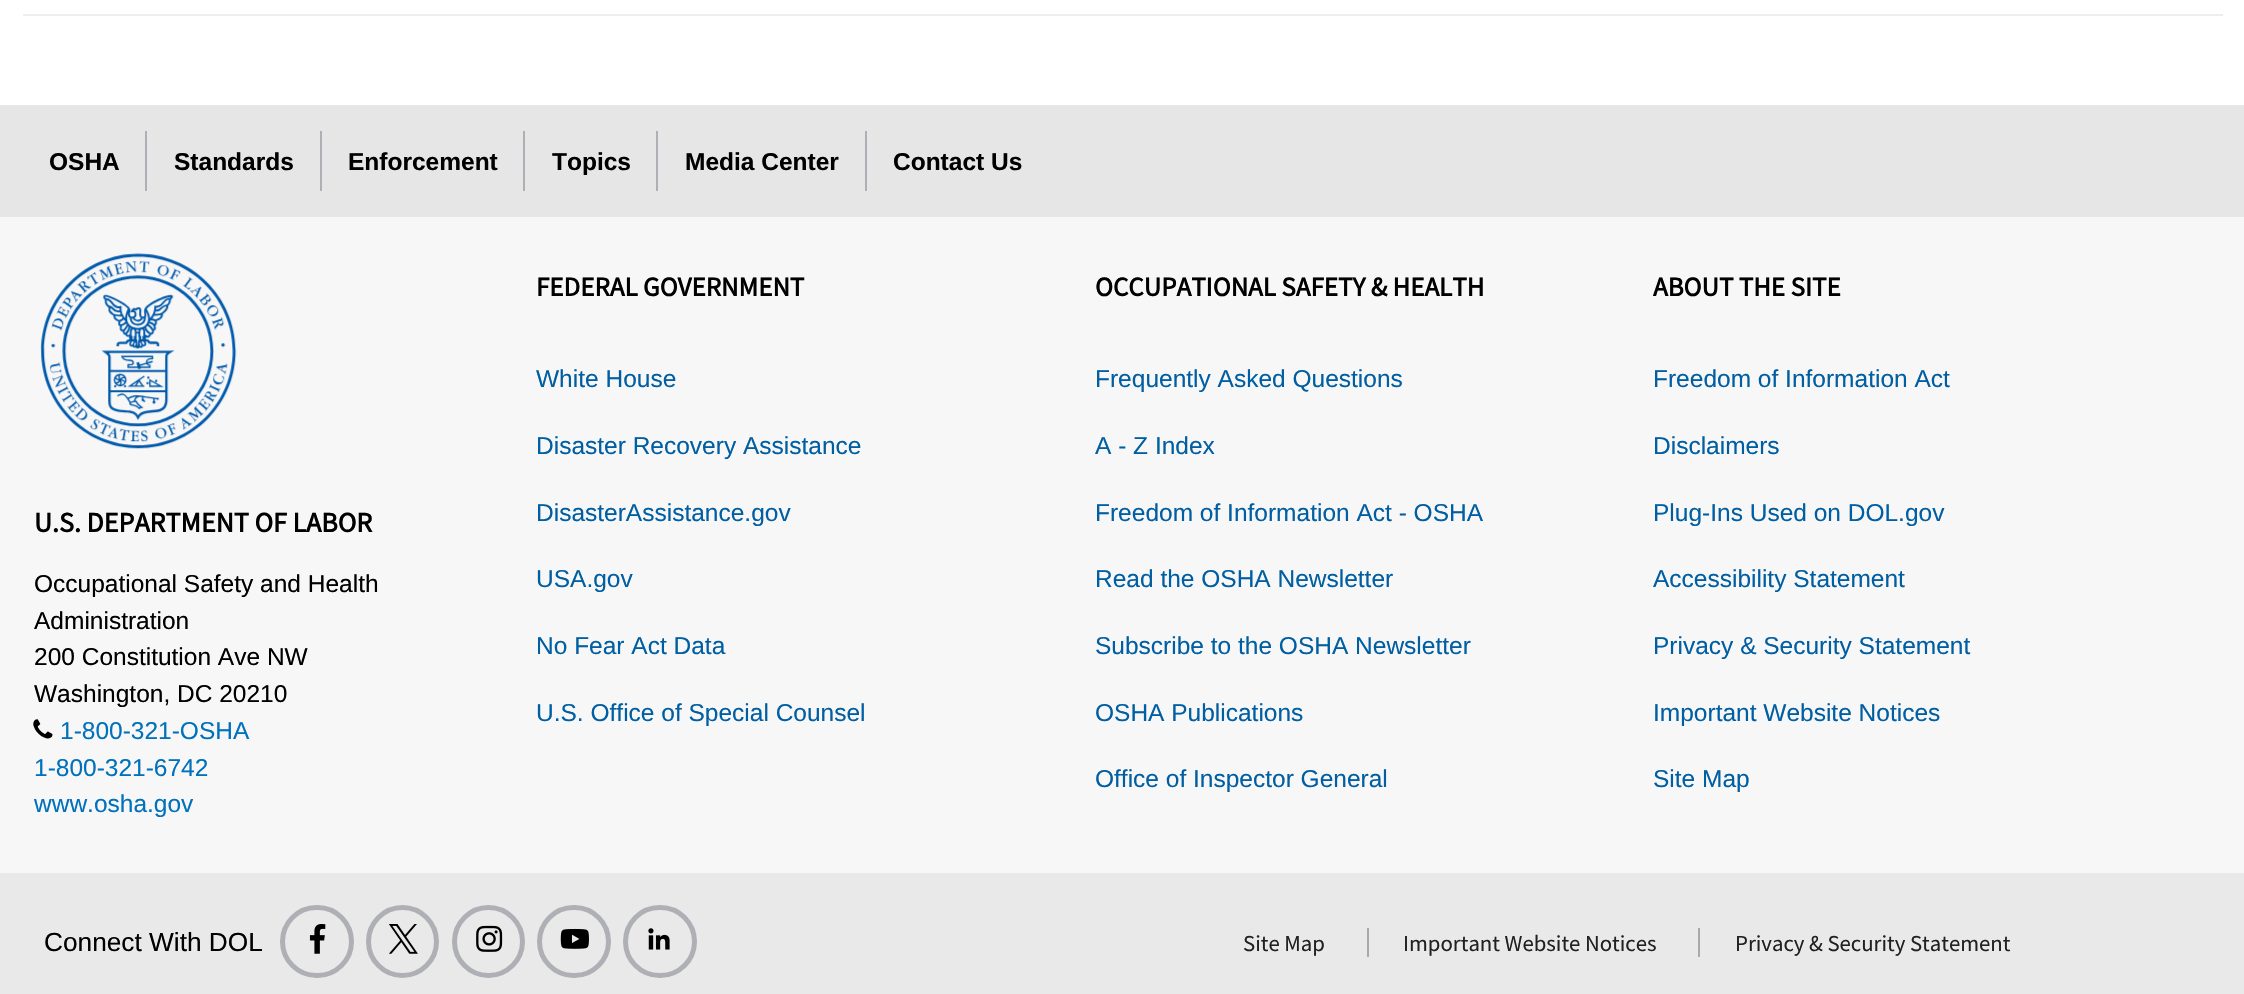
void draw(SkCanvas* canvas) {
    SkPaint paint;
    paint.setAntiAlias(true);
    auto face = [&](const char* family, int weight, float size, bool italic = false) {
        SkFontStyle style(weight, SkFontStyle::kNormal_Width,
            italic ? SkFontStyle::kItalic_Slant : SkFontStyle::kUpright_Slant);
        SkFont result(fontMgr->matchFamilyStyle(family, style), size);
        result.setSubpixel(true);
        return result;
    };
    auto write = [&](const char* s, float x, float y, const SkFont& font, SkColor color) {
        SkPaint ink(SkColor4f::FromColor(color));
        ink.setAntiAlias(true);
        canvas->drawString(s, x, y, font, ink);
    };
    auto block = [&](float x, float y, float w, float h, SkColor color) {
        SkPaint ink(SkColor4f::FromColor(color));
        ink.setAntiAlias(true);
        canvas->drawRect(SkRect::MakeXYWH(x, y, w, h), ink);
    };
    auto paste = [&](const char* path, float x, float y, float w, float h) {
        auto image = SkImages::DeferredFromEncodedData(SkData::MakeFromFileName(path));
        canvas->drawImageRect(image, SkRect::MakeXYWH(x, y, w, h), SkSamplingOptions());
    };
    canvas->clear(SK_ColorWHITE);
    block(23, 14, 2200, 2, SkColorSetRGB(238, 238, 238));
    block(0, 105, 2244, 112, SkColorSetRGB(230, 230, 230));
    auto kFont1 = face("Liberation Sans", 700, 24.5f);
    write("OSHA", 49, 170, kFont1, SK_ColorBLACK);
    block(145, 131, 2, 60, SkColorSetRGB(174, 176, 181));
    write("Standards", 174, 170, kFont1, SK_ColorBLACK);
    block(320, 131, 2, 60, SkColorSetRGB(174, 176, 181));
    write("Enforcement", 348, 170, kFont1, SK_ColorBLACK);
    block(523, 131, 2, 60, SkColorSetRGB(174, 176, 181));
    write("Topics", 552, 170, kFont1, SK_ColorBLACK);
    block(656, 131, 2, 60, SkColorSetRGB(174, 176, 181));
    write("Media Center", 685, 170, kFont1, SK_ColorBLACK);
    block(865, 131, 2, 60, SkColorSetRGB(174, 176, 181));
    write("Contact Us", 893, 170, kFont1, SK_ColorBLACK);
    block(0, 217, 2244, 656, SkColorSetRGB(247, 247, 247));
    paste("pic1.png", 40, 253, 197, 196);
    auto kFont2 = face("Source Sans Pro", 700, 28);
    write("U.S. DEPARTMENT OF LABOR", 34, 532, kFont2, SK_ColorBLACK);
    auto kFont3 = face("Liberation Sans", 400, 24.5f);
    write("Occupational Safety and Health", 34, 592, kFont3, SK_ColorBLACK);
    write("Administration", 34, 629, kFont3, SK_ColorBLACK);
    write("200 Constitution Ave NW", 34, 665, kFont3, SK_ColorBLACK);
    write("Washington, DC 20210", 34, 702, kFont3, SK_ColorBLACK);
    paste("pic2.png", 33, 719, 20, 20);
    write("1-800-321-OSHA", 60, 739, kFont3, SkColorSetRGB(0, 113, 188));
    write("1-800-321-6742", 34, 776, kFont3, SkColorSetRGB(0, 113, 188));
    write("www.osha.gov", 34, 812, kFont3, SkColorSetRGB(0, 113, 188));
    auto kFont4 = face("Source Sans Pro", 700, 27);
    write("FEDERAL GOVERNMENT", 536, 296, kFont4, SK_ColorBLACK);
    write("White House", 536, 387, kFont3, SkColorSetRGB(0, 94, 162));
    write("Disaster Recovery Assistance", 536, 454, kFont3, SkColorSetRGB(0, 94, 162));
    write("DisasterAssistance.gov", 536, 521, kFont3, SkColorSetRGB(0, 94, 162));
    write("USA.gov", 536, 587, kFont3, SkColorSetRGB(0, 94, 162));
    write("No Fear Act Data", 536, 654, kFont3, SkColorSetRGB(0, 94, 162));
    write("U.S. Office of Special Counsel", 536, 721, kFont3, SkColorSetRGB(0, 94, 162));
    write("OCCUPATIONAL SAFETY & HEALTH", 1095, 296, kFont4, SK_ColorBLACK);
    write("Frequently Asked Questions", 1095, 387, kFont3, SkColorSetRGB(0, 94, 162));
    write("A - Z Index", 1095, 454, kFont3, SkColorSetRGB(0, 94, 162));
    write("Freedom of Information Act - OSHA", 1095, 521, kFont3, SkColorSetRGB(0, 94, 162));
    write("Read the OSHA Newsletter", 1095, 587, kFont3, SkColorSetRGB(0, 94, 162));
    write("Subscribe to the OSHA Newsletter", 1095, 654, kFont3, SkColorSetRGB(0, 94, 162));
    write("OSHA Publications", 1095, 721, kFont3, SkColorSetRGB(0, 94, 162));
    write("Office of Inspector General", 1095, 787, kFont3, SkColorSetRGB(0, 94, 162));
    write("ABOUT THE SITE", 1653, 296, kFont4, SK_ColorBLACK);
    write("Freedom of Information Act", 1653, 387, kFont3, SkColorSetRGB(0, 94, 162));
    write("Disclaimers", 1653, 454, kFont3, SkColorSetRGB(0, 94, 162));
    write("Plug-Ins Used on DOL.gov", 1653, 521, kFont3, SkColorSetRGB(0, 94, 162));
    write("Accessibility Statement", 1653, 587, kFont3, SkColorSetRGB(0, 94, 162));
    write("Privacy & Security Statement", 1653, 654, kFont3, SkColorSetRGB(0, 94, 162));
    write("Important Website Notices", 1653, 721, kFont3, SkColorSetRGB(0, 94, 162));
    write("Site Map", 1653, 787, kFont3, SkColorSetRGB(0, 94, 162));
    block(0, 873, 2244, 121, SkColorSetRGB(233, 233, 233));
    auto kFont5 = face("Liberation Sans", 400, 26.25f);
    write("Connect With DOL", 44, 951, kFont5, SK_ColorBLACK);
    paint.setStyle(SkPaint::kStroke_Style);
    paint.setStrokeWidth(5);
    paint.setColor(SkColorSetRGB(174, 176, 181));
    canvas->drawRoundRect(SkRect::MakeXYWH(282.5f, 907.5f, 69, 68), 34, 34, paint);
    paste("pic3.png", 309, 924, 17, 30);
    canvas->drawCircle(402.5f, 941.5f, 34, paint);
    paste("pic4.png", 389, 924, 29, 30);
    canvas->drawCircle(488.5f, 941.5f, 34, paint);
    paste("pic5.png", 476, 925, 27, 27);
    canvas->drawRoundRect(SkRect::MakeXYWH(539.5f, 907.5f, 69, 68), 34, 34, paint);
    paste("pic6.png", 560, 928, 29, 21);
    canvas->drawRoundRect(SkRect::MakeXYWH(625.5f, 907.5f, 69, 68), 34, 34, paint);
    paste("pic7.png", 648, 928, 22, 22);
    auto kFont6 = face("Source Sans Pro", 400, 22.75f);
    write("Site Map", 1243, 951, kFont6, SkColorSetRGB(33, 33, 33));
    write("Important Website Notices", 1403, 951, kFont6, SkColorSetRGB(33, 33, 33));
    block(1367, 928, 2, 29, SkColorSetRGB(169, 169, 169));
    write("Privacy & Security Statement", 1735, 951, kFont6, SkColorSetRGB(33, 33, 33));
    block(1698, 928, 2, 29, SkColorSetRGB(169, 169, 169));
}
